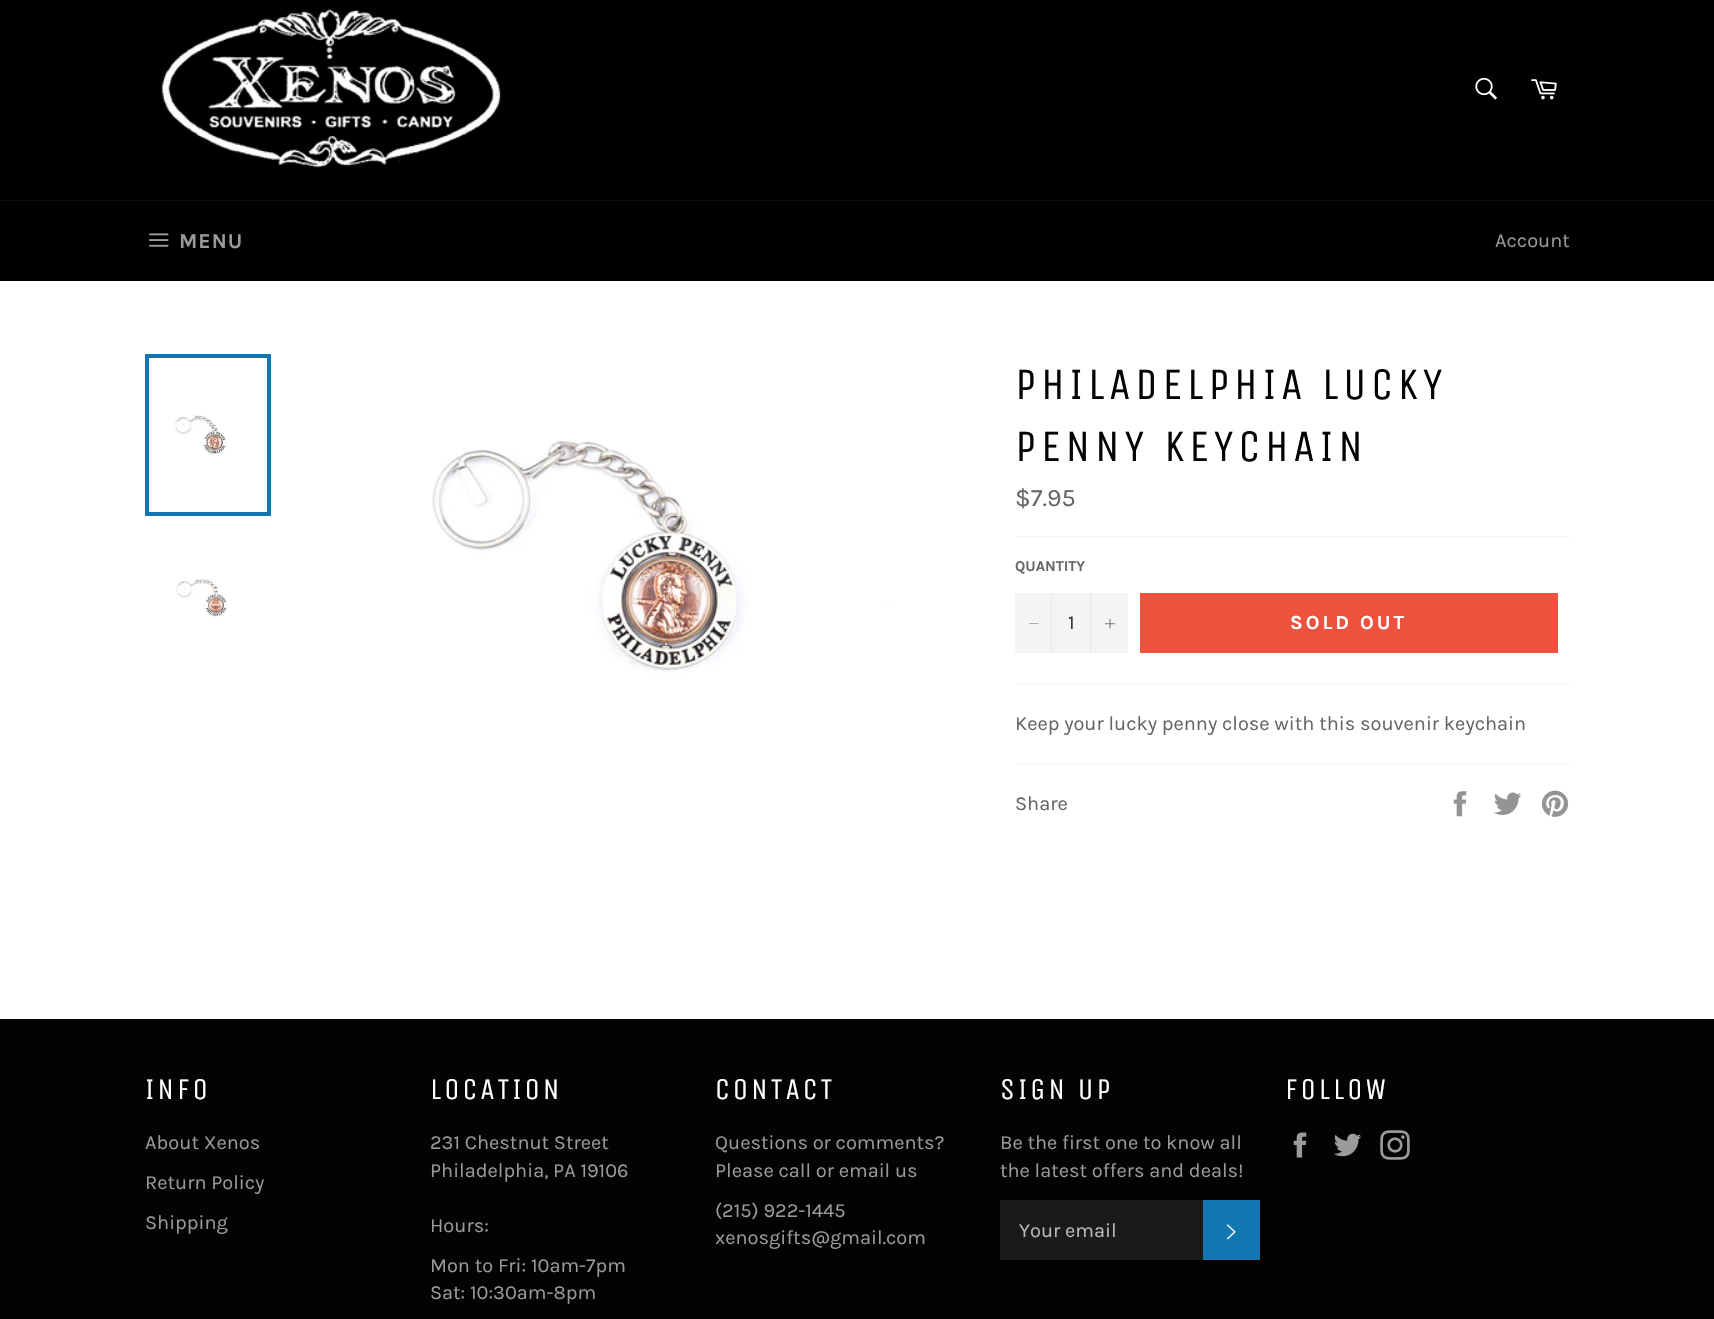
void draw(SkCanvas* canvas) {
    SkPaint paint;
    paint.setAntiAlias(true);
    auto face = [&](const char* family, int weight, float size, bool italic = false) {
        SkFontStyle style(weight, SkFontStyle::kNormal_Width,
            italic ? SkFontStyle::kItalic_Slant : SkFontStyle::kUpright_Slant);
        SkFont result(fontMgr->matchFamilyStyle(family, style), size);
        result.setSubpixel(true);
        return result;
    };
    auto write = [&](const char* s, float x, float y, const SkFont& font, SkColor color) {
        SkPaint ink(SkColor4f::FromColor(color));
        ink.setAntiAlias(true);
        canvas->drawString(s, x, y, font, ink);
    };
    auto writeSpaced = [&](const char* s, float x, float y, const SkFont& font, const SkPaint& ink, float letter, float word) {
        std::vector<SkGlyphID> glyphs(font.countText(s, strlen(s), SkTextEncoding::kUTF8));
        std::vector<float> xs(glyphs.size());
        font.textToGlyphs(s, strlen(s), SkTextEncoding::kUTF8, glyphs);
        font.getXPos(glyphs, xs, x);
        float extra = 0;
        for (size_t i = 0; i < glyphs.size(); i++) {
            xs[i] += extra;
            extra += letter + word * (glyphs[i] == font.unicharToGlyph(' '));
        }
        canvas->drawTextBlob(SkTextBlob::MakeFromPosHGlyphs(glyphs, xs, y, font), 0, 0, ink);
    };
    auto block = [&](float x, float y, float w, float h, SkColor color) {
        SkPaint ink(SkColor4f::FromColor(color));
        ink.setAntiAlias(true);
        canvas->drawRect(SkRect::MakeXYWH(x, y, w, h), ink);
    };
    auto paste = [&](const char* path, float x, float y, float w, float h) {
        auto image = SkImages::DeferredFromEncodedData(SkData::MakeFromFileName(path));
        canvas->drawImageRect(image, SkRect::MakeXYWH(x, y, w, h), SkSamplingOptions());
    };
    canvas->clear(SK_ColorBLACK);
    paste("pic1.png", 161, 9, 340, 159);
    paste("pic2.png", 1475, 77, 22, 23);
    paste("pic3.png", 1531, 79, 26, 21);
    block(0, 200, 1714, 1, SkColorSetRGB(13, 13, 13));
    paste("pic4.png", 149, 233, 20, 14);
    auto kFont1 = face("Karla", 700, 21);
    paint.setColor(SkColorSetRGB(154, 154, 154));
    writeSpaced("MENU", 179, 248, kFont1, paint, 1, 0);
    auto kFont2 = face("Karla", 400, 20);
    write("Account", 1495, 247, kFont2, SkColorSetRGB(154, 154, 154));
    block(0, 281, 1714, 738, SK_ColorWHITE);
    paste("pic5.png", 174, 415, 53, 40);
    paint.setStyle(SkPaint::kStroke_Style);
    paint.setStrokeWidth(4);
    paint.setColor(SkColorSetRGB(18, 119, 177));
    canvas->drawRect(SkRect::MakeXYWH(147, 356, 122, 158), paint);
    paste("pic6.png", 176, 579, 52, 38);
    paste("pic7.png", 432, 440, 457, 233);
    auto kFont3 = face("Unica One", 400, 45);
    paint.setStyle(SkPaint::kFill_Style);
    paint.setColor(SkColorSetRGB(3, 3, 3));
    writeSpaced("PHILADELPHIA LUCKY", 1015, 399, kFont3, paint, 4.5f, 0);
    writeSpaced("PENNY KEYCHAIN", 1015, 461, kFont3, paint, 4.5f, 0);
    auto kFont4 = face("Karla", 400, 25);
    write("$7.95", 1015, 506, kFont4, SkColorSetRGB(102, 102, 102));
    block(1015, 536, 555, 1, SkColorSetRGB(247, 247, 247));
    auto kFont5 = face("Karla", 700, 15);
    write("QUANTITY", 1015, 571, kFont5, SkColorSetRGB(102, 102, 102));
    block(1015, 593, 113, 60, SkColorSetRGB(244, 244, 244));
    block(1051, 593, 1, 60, SkColorSetRGB(231, 231, 231));
    paint.setColor(SkColorSetRGB(102, 102, 102));
    canvas->drawPath(SkPathBuilder(SkPathFillType::kEvenOdd).moveTo(1038.5f, 623.5f).lineTo(1038.5f, 624).lineTo(1029, 624).lineTo(1029, 623.5f).close().detach(), paint);
    write("1", 1068, 629, kFont2, SkColorSetRGB(51, 51, 51));
    block(1090, 593, 1, 60, SkColorSetRGB(231, 231, 231));
    paste("pic8.png", 1105, 619, 10, 10);
    block(1140, 593, 418, 60, SkColorSetRGB(236, 82, 62));
    auto kFont6 = face("Karla", 700, 20);
    paint.setColor(SK_ColorWHITE);
    writeSpaced("SOLD OUT", 1290, 629, kFont6, paint, 3, 0);
    block(1015, 684, 555, 1, SkColorSetRGB(247, 247, 247));
    write("Keep your lucky penny close with this souvenir keychain", 1015, 730, kFont2, SkColorSetRGB(102, 102, 102));
    block(1015, 763, 555, 1, SkColorSetRGB(247, 247, 247));
    write("Share", 1015, 810, kFont2, SkColorSetRGB(102, 102, 102));
    paste("pic9.png", 1453, 791, 14, 26);
    paste("pic10.png", 1494, 792, 28, 23);
    paste("pic11.png", 1541, 790, 28, 27);
    block(0, 1019, 1714, 300, SkColorSetRGB(3, 3, 3));
    auto kFont7 = face("Unica One", 400, 30);
    writeSpaced("INFO", 145, 1099, kFont7, paint, 3, 0);
    write("About Xenos", 145, 1149, kFont2, SkColorSetRGB(154, 154, 154));
    write("Return Policy", 145, 1189, kFont2, SkColorSetRGB(154, 154, 154));
    write("Shipping", 145, 1229, kFont2, SkColorSetRGB(154, 154, 154));
    writeSpaced("LOCATION", 430, 1099, kFont7, paint, 3, 0);
    write("231 Chestnut Street", 430, 1149, kFont2, SkColorSetRGB(154, 154, 154));
    write("Philadelphia, PA 19106", 430, 1177, kFont2, SkColorSetRGB(154, 154, 154));
    write("Hours:", 430, 1232, kFont2, SkColorSetRGB(154, 154, 154));
    write("Mon to Fri: 10am-7pm", 430, 1272, kFont2, SkColorSetRGB(154, 154, 154));
    write("Sat: 10:30am-8pm", 430, 1299, kFont2, SkColorSetRGB(154, 154, 154));
    writeSpaced("CONTACT", 715, 1099, kFont7, paint, 3, 0);
    write("Questions or comments?", 715, 1149, kFont2, SkColorSetRGB(154, 154, 154));
    write("Please call or email us", 715, 1177, kFont2, SkColorSetRGB(154, 154, 154));
    write("(215) 922-1445", 715, 1217, kFont2, SkColorSetRGB(154, 154, 154));
    write("xenosgifts@gmail.com", 715, 1244, kFont2, SkColorSetRGB(154, 154, 154));
    writeSpaced("SIGN UP", 1000, 1099, kFont7, paint, 3, 0);
    write("Be the first one to know all", 1000, 1149, kFont2, SkColorSetRGB(154, 154, 154));
    write("the latest offers and deals!", 1000, 1177, kFont2, SkColorSetRGB(154, 154, 154));
    block(1000, 1200, 203, 60, SkColorSetRGB(26, 26, 26));
    write("Your email", 1019, 1237, kFont2, SkColorSetRGB(186, 186, 186));
    block(1203, 1200, 57, 60, SkColorSetRGB(18, 119, 177));
    paste("pic12.png", 1226, 1224, 10, 16);
    writeSpaced("FOLLOW", 1285, 1099, kFont7, paint, 3, 0);
    paste("pic13.png", 1293, 1132, 14, 26);
    paste("pic14.png", 1334, 1133, 28, 24);
    paste("pic15.png", 1380, 1130, 30, 30);
}
